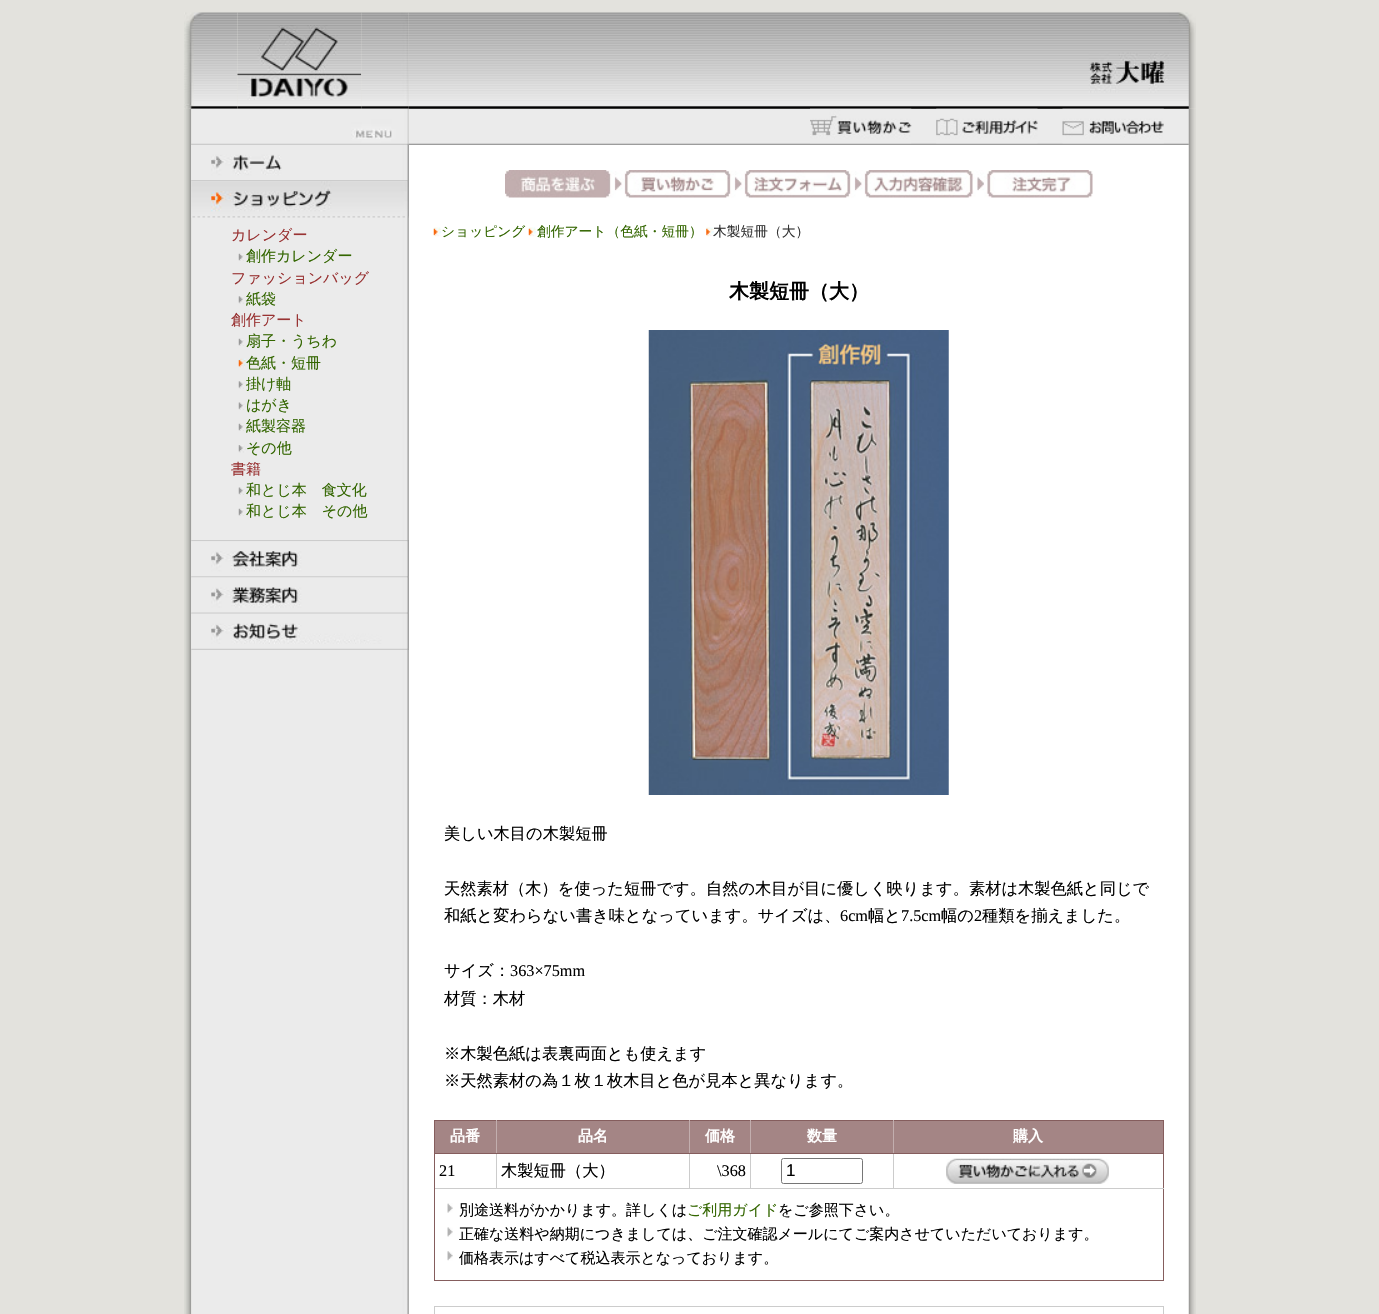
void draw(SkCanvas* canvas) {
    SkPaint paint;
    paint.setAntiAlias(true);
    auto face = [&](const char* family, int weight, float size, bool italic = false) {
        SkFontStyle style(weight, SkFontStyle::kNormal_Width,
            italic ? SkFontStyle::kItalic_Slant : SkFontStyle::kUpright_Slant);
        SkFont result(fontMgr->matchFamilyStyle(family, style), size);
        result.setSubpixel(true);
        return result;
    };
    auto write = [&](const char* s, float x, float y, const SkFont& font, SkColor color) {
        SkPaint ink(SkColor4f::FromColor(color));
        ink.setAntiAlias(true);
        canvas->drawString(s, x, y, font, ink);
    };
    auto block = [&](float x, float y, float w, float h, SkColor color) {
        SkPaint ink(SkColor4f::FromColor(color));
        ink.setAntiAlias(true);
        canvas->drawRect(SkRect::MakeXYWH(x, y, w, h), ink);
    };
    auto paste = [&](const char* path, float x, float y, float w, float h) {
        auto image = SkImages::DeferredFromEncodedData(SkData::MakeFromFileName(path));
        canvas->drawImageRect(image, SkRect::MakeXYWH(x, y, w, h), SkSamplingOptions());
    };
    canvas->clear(SkColorSetRGB(227, 226, 221));
    paste("pic7.png", 184, 108, 8, 37);
    paste("pic1.png", 184, 12, 54, 97);
    paste("pic2.png", 237, 12, 125, 13);
    paste("pic3.png", 237, 25, 125, 75);
    paste("pic4.png", 237, 100, 125, 9);
    paste("pic5.png", 361, 12, 48, 97);
    paste("pic10.png", 408, 109, 781, 36);
    paste("pic14.png", 1188, 108, 8, 37);
    paste("pic6.png", 408, 12, 788, 97);
    paste("pic8.png", 191, 108, 218, 36);
    paste("pic9.png", 191, 143, 218, 2);
    paste("pic11.png", 810, 108, 102, 36);
    paste("pic12.png", 936, 108, 102, 36);
    paste("pic13.png", 1062, 108, 102, 36);
    paste("pic15.png", 184, 145, 8, 1169);
    paste("pic16.png", 191, 145, 218, 1169);
    paste("pic17.png", 191, 145, 218, 35);
    paste("pic18.png", 191, 180, 218, 2);
    paste("pic19.png", 191, 181, 218, 35);
    paste("pic20.png", 191, 216, 218, 2);
    auto kFont1 = face("WenQuanYi Zen Hei", 500, 15);
    write("カレンダー", 231, 240, kFont1, SkColorSetRGB(153, 51, 51));
    paste("pic21.png", 238, 253, 6, 8);
    write("創作カレンダー", 246, 261, kFont1, SkColorSetRGB(51, 102, 0));
    write("ファッションバッグ", 231, 283, kFont1, SkColorSetRGB(153, 51, 51));
    paste("pic22.png", 238, 296, 8, 8);
    write("紙袋", 246, 304, kFont1, SkColorSetRGB(51, 102, 0));
    write("創作アート", 231, 325, kFont1, SkColorSetRGB(153, 51, 51));
    paste("pic21.png", 238, 338, 6, 8);
    write("扇子・うちわ", 246, 346, kFont1, SkColorSetRGB(51, 102, 0));
    paste("pic23.png", 238, 358, 8, 10);
    write("色紙・短冊", 246, 368, kFont1, SkColorSetRGB(51, 102, 0));
    paste("pic22.png", 238, 381, 8, 8);
    write("掛け軸", 246, 389, kFont1, SkColorSetRGB(51, 102, 0));
    paste("pic24.png", 238, 402, 8, 8);
    write("はがき", 246, 410, kFont1, SkColorSetRGB(51, 102, 0));
    paste("pic21.png", 238, 423, 6, 8);
    write("紙製容器", 246, 431, kFont1, SkColorSetRGB(51, 102, 0));
    paste("pic25.png", 238, 445, 8, 8);
    write("その他", 246, 453, kFont1, SkColorSetRGB(51, 102, 0));
    write("書籍", 231, 474, kFont1, SkColorSetRGB(153, 51, 51));
    paste("pic24.png", 238, 487, 8, 8);
    write("和とじ本　食文化", 246, 495, kFont1, SkColorSetRGB(51, 102, 0));
    paste("pic21.png", 238, 508, 6, 8);
    write("和とじ本　その他", 246, 516, kFont1, SkColorSetRGB(51, 102, 0));
    paste("pic18.png", 191, 540, 218, 2);
    paste("pic26.png", 191, 541, 218, 35);
    paste("pic27.png", 191, 576, 218, 2);
    paste("pic28.png", 191, 577, 218, 36);
    paste("pic29.png", 191, 612, 218, 2);
    paste("pic30.png", 191, 613, 218, 36);
    paste("pic31.png", 191, 648, 218, 2);
    block(409, 145, 780, 1169, SK_ColorWHITE);
    paste("pic32.png", 505, 170, 588, 28);
    paste("pic33.png", 433, 227, 9, 10);
    auto kFont2 = face("WenQuanYi Zen Hei", 500, 13.75f);
    write("ショッピング", 441, 236, kFont2, SkColorSetRGB(51, 102, 0));
    paste("pic33.png", 528, 227, 9, 10);
    write("創作アート（色紙・短冊）", 537, 236, kFont2, SkColorSetRGB(51, 102, 0));
    paste("pic34.png", 706, 227, 8, 10);
    write("木製短冊（大）", 713, 236, kFont2, SkColorSetRGB(51, 51, 51));
    auto kFont3 = face("WenQuanYi Zen Hei", 700, 20);
    write("木製短冊（大）", 729, 298, kFont3, SK_ColorBLACK);
    paste("pic35.png", 648, 330, 301, 465);
    auto kFont4 = face("WenQuanYi Zen Hei", 500, 16.25f);
    write("美しい木目の木製短冊", 444, 839, kFont4, SK_ColorBLACK);
    write("天然素材（木）を使った短冊です。自然の木目が目に優しく映ります。素材は木製色紙と同じで", 444, 894, kFont4, SK_ColorBLACK);
    write("和紙と変わらない書き味となっています。サイズは、", 444, 921, kFont4, SK_ColorBLACK);
    auto kFont5 = face("Liberation Serif", 400, 16.25f);
    write("6cm", 840, 921, kFont5, SK_ColorBLACK);
    write("幅と", 868, 921, kFont4, SK_ColorBLACK);
    write("7.5cm", 901, 921, kFont5, SK_ColorBLACK);
    write("幅の", 941, 921, kFont4, SK_ColorBLACK);
    write("2", 974, 921, kFont5, SK_ColorBLACK);
    write("種類を揃えました。", 982, 921, kFont4, SK_ColorBLACK);
    write("サイズ：", 444, 976, kFont4, SK_ColorBLACK);
    write("363×75mm", 510, 976, kFont5, SK_ColorBLACK);
    write("材質：木材", 444, 1004, kFont4, SK_ColorBLACK);
    write("※木製色紙は表裏両面とも使えます", 444, 1059, kFont4, SK_ColorBLACK);
    write("※天然素材の為１枚１枚木目と色が見本と異なります。", 444, 1086, kFont4, SK_ColorBLACK);
    block(435, 1121, 254, 32, SkColorSetRGB(164, 133, 133));
    block(434, 1120, 730, 1, SkColorSetRGB(133, 93, 93));
    block(496, 1120, 1, 34, SkColorSetRGB(194, 174, 174));
    block(434, 1153, 64, 1, SkColorSetRGB(133, 93, 93));
    block(434, 1120, 1, 34, SkColorSetRGB(133, 93, 93));
    auto kFont6 = face("WenQuanYi Zen Hei", 700, 15);
    write("品番", 450, 1141, kFont6, SK_ColorWHITE);
    block(689, 1120, 1, 34, SkColorSetRGB(194, 174, 174));
    block(498, 1153, 192, 1, SkColorSetRGB(133, 93, 93));
    write("品名", 578, 1141, kFont6, SK_ColorWHITE);
    block(690, 1121, 60, 32, SkColorSetRGB(164, 133, 133));
    block(750, 1120, 1, 34, SkColorSetRGB(194, 174, 174));
    block(690, 1153, 61, 1, SkColorSetRGB(133, 93, 93));
    write("価格", 705, 1141, kFont6, SK_ColorWHITE);
    block(751, 1121, 142, 32, SkColorSetRGB(164, 133, 133));
    block(893, 1120, 1, 34, SkColorSetRGB(194, 174, 174));
    block(751, 1153, 143, 1, SkColorSetRGB(133, 93, 93));
    write("数量", 807, 1141, kFont6, SK_ColorWHITE);
    block(894, 1121, 269, 32, SkColorSetRGB(164, 133, 133));
    block(1163, 1120, 1, 161, SkColorSetRGB(133, 93, 93));
    block(894, 1153, 270, 1, SkColorSetRGB(133, 93, 93));
    write("購入", 1013, 1141, kFont6, SK_ColorWHITE);
    block(496, 1154, 1, 35, SkColorSetRGB(204, 204, 204));
    block(434, 1188, 64, 1, SkColorSetRGB(204, 204, 204));
    block(434, 1154, 1, 35, SkColorSetRGB(133, 93, 93));
    write("21", 439, 1176, kFont5, SK_ColorBLACK);
    block(689, 1154, 1, 35, SkColorSetRGB(204, 204, 204));
    block(498, 1188, 192, 1, SkColorSetRGB(204, 204, 204));
    write("木製短冊（大）", 501, 1176, kFont4, SK_ColorBLACK);
    block(750, 1154, 1, 35, SkColorSetRGB(204, 204, 204));
    block(690, 1188, 61, 1, SkColorSetRGB(204, 204, 204));
    write("\\368", 717, 1176, kFont5, SK_ColorBLACK);
    block(893, 1154, 1, 35, SkColorSetRGB(204, 204, 204));
    block(751, 1188, 413, 1, SkColorSetRGB(204, 204, 204));
    paint.setStyle(SkPaint::kStroke_Style);
    paint.setStrokeWidth(1);
    paint.setColor(SkColorSetRGB(118, 118, 118));
    canvas->drawRoundRect(SkRect::MakeXYWH(781.5f, 1158.5f, 81, 25), 2, 2, paint);
    auto kFont7 = face("Liberation Sans", 400, 17);
    write("1", 786, 1176, kFont7, SK_ColorBLACK);
    paste("pic36.png", 946, 1158, 163, 26);
    block(434, 1280, 730, 1, SkColorSetRGB(133, 93, 93));
    block(434, 1189, 1, 92, SkColorSetRGB(133, 93, 93));
    paste("pic37.png", 447, 1203, 6, 10);
    write("別途送料がかかります。詳しくは", 459, 1215, kFont1, SK_ColorBLACK);
    write("ご利用ガイド", 687, 1215, kFont1, SkColorSetRGB(51, 102, 0));
    write("をご参照下さい。", 778, 1215, kFont1, SK_ColorBLACK);
    paste("pic38.png", 447, 1227, 6, 10);
    write("正確な送料や納期につきましては、ご注文確認メールにてご案内させていただいております。", 459, 1239, kFont1, SK_ColorBLACK);
    paste("pic39.png", 447, 1251, 6, 10);
    write("価格表示はすべて税込表示となっております。", 459, 1263, kFont1, SK_ColorBLACK);
    paint.setColor(SkColorSetRGB(204, 204, 204));
    canvas->drawRect(SkRect::MakeXYWH(434.5f, 1306.5f, 729, 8), paint);
    paste("pic40.png", 1188, 145, 8, 1169);
}
